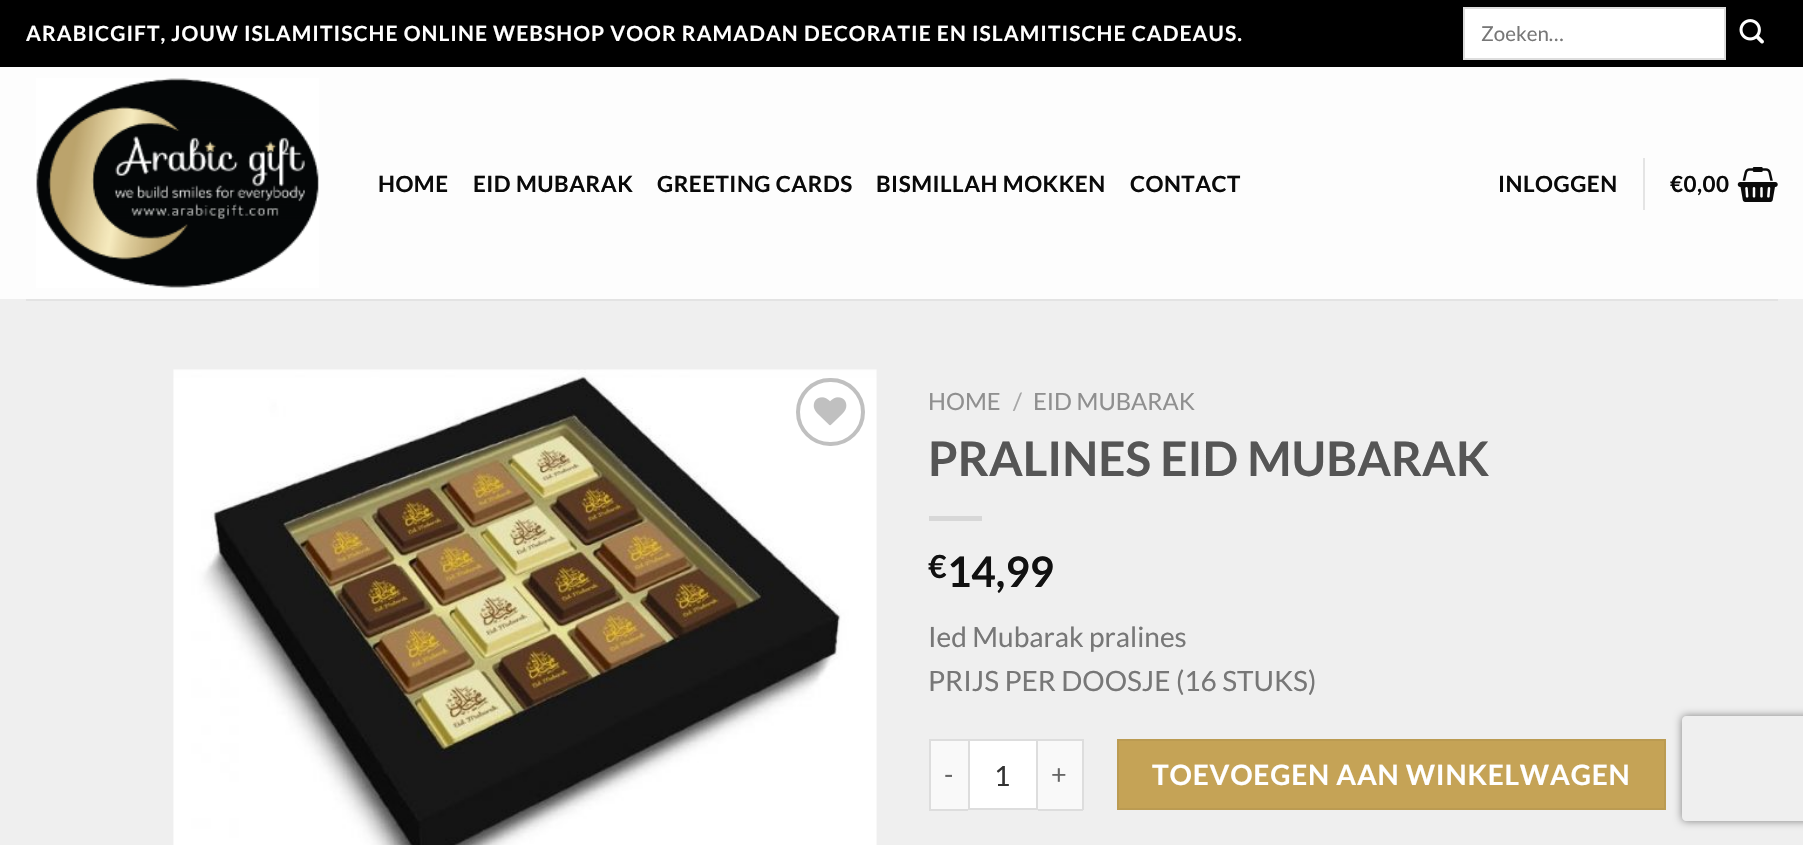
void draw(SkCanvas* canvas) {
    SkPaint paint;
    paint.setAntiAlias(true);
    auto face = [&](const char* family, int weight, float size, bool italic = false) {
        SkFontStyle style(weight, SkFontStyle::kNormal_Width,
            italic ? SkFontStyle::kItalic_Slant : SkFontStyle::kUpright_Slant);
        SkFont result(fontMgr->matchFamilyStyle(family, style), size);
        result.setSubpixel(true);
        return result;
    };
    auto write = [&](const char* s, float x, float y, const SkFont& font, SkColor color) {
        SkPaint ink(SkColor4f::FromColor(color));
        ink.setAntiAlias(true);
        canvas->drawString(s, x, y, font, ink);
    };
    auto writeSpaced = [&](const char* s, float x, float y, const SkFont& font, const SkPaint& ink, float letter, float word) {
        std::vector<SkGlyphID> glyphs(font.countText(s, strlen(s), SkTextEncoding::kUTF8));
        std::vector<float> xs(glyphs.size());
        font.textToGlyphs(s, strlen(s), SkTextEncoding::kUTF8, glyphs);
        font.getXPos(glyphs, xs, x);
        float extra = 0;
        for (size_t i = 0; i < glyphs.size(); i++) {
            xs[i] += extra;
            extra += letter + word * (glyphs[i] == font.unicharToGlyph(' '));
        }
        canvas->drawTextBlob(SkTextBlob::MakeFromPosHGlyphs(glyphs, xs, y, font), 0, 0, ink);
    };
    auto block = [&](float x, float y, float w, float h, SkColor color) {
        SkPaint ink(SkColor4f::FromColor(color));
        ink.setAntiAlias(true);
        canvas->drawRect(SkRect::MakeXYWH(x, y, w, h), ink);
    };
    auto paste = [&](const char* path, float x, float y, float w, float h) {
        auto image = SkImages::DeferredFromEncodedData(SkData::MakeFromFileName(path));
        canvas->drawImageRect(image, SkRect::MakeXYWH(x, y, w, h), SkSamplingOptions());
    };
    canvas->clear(SkColorSetRGB(239, 239, 239));
    block(0, 0, 1803, 67, SK_ColorBLACK);
    auto kFont1 = face("Lato", 700, 21);
    paint.setColor(SK_ColorWHITE);
    writeSpaced("ARABICGIFT, JOUW ISLAMITISCHE ONLINE WEBSHOP VOOR RAMADAN DECORATIE EN ISLAMITISCHE CADEAUS.", 26, 41, kFont1, paint, 1.05f, 0);
    canvas->drawRect(SkRect::MakeXYWH(1464, 8, 261, 51), paint);
    paint.setStyle(SkPaint::kStroke_Style);
    paint.setStrokeWidth(2);
    paint.setColor(SkColorSetRGB(221, 221, 221));
    canvas->drawRect(SkRect::MakeXYWH(1464, 8, 261, 51), paint);
    auto kFont2 = face("Lato", 400, 20.5f);
    write("Zoeken…", 1481, 41, kFont2, SkColorSetRGB(119, 119, 119));
    paste("pic1.png", 1739, 19, 25, 25);
    block(0, 67, 1803, 232, SkColorSetRGB(253, 253, 253));
    paste("pic2.png", 36, 78, 283, 210);
    auto kFont3 = face("Lato", 700, 22.4f);
    paint.setStyle(SkPaint::kFill_Style);
    paint.setColor(SkColorSetRGB(10, 10, 10));
    writeSpaced("HOME", 378, 192, kFont3, paint, 0.5f, 0);
    writeSpaced("EID MUBARAK", 473, 192, kFont3, paint, 0.5f, 0);
    writeSpaced("GREETING CARDS", 657, 192, kFont3, paint, 0.5f, 0);
    writeSpaced("BISMILLAH MOKKEN", 876, 192, kFont3, paint, 0.5f, 0);
    writeSpaced("CONTACT", 1130, 192, kFont3, paint, 0.5f, 0);
    writeSpaced("INLOGGEN", 1498, 192, kFont3, paint, 0.5f, 0);
    block(1643, 158, 2, 52, SkColorSetRGB(228, 228, 228));
    writeSpaced("€0,00", 1670, 192, kFont3, paint, 0.5f, 0);
    paste("pic3.png", 1737, 167, 41, 35);
    block(26, 299, 1752, 2, SkColorSetRGB(227, 227, 227));
    paste("pic4.png", 173, 369, 704, 476);
    paint.setStyle(SkPaint::kStroke_Style);
    paint.setStrokeWidth(4);
    paint.setColor(SkColorSetRGB(192, 192, 192));
    canvas->drawRoundRect(SkRect::MakeXYWH(798, 380, 65, 64), 32, 32, paint);
    paste("pic5.png", 813, 397, 34, 29);
    auto kFont4 = face("Lato", 400, 23.75f);
    write("HOME", 928, 410, kFont4, SkColorSetRGB(143, 143, 143));
    write("/", 1013, 410, kFont4, SkColorSetRGB(167, 167, 167));
    write("EID MUBARAK", 1033, 410, kFont4, SkColorSetRGB(143, 143, 143));
    auto kFont5 = face("Lato", 700, 47.6f);
    write("PRALINES EID MUBARAK", 928, 476, kFont5, SkColorSetRGB(85, 85, 85));
    block(929, 516, 53, 5, SkColorSetRGB(215, 215, 215));
    auto kFont6 = face("Lato", 700, 32);
    write("€", 928, 578, kFont6, SkColorSetRGB(17, 17, 17));
    auto kFont7 = face("Lato", 700, 42);
    write("14,99", 947, 587, kFont7, SkColorSetRGB(17, 17, 17));
    auto kFont8 = face("Lato", 400, 28);
    write("Ied Mubarak pralines", 928, 647, kFont8, SkColorSetRGB(119, 119, 119));
    write("PRIJS PER DOOSJE (16 STUKS)", 928, 691, kFont8, SkColorSetRGB(119, 119, 119));
    block(931, 741, 37, 68, SkColorSetRGB(249, 249, 249));
    block(929, 739, 39, 2, SkColorSetRGB(221, 221, 221));
    block(929, 809, 39, 2, SkColorSetRGB(221, 221, 221));
    block(929, 739, 2, 71, SkColorSetRGB(221, 221, 221));
    auto kFont9 = face("Lato", 400, 27);
    paint.setStyle(SkPaint::kFill_Style);
    paint.setColor(SkColorSetRGB(102, 102, 102));
    writeSpaced("-", 944, 784, kFont9, paint, 1, 0);
    paint.setColor(SK_ColorWHITE);
    canvas->drawRect(SkRect::MakeXYWH(969, 740, 68, 69), paint);
    paint.setStyle(SkPaint::kStroke_Style);
    paint.setStrokeWidth(2);
    paint.setColor(SkColorSetRGB(221, 221, 221));
    canvas->drawRect(SkRect::MakeXYWH(969, 740, 68, 69), paint);
    write("1", 994, 786, kFont8, SkColorSetRGB(51, 51, 51));
    block(1038, 741, 44, 68, SkColorSetRGB(249, 249, 249));
    block(1038, 739, 45, 2, SkColorSetRGB(221, 221, 221));
    block(1082, 739, 2, 71, SkColorSetRGB(221, 221, 221));
    block(1038, 809, 45, 2, SkColorSetRGB(221, 221, 221));
    paint.setStyle(SkPaint::kFill_Style);
    paint.setColor(SkColorSetRGB(102, 102, 102));
    writeSpaced("+", 1051, 784, kFont9, paint, 1, 0);
    paint.setColor(SkColorSetRGB(197, 163, 86));
    canvas->drawRect(SkRect::MakeXYWH(1118, 740, 547, 69), paint);
    paint.setStyle(SkPaint::kStroke_Style);
    paint.setColor(SkColorSetRGB(187, 155, 82));
    canvas->drawRect(SkRect::MakeXYWH(1118, 740, 547, 69), paint);
    auto kFont10 = face("Lato", 700, 28);
    paint.setStyle(SkPaint::kFill_Style);
    paint.setColor(SK_ColorWHITE);
    writeSpaced("TOEVOEGEN AAN WINKELWAGEN", 1152, 785, kFont10, paint, 0.8f, 0);
    canvas->save();
    canvas->clipPath(SkPathBuilder(SkPathFillType::kEvenOdd).moveTo(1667, 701).lineTo(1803, 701).lineTo(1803, 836).lineTo(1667, 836).close().moveTo(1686, 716).lineTo(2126, 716).cubicTo(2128, 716, 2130, 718, 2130, 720).lineTo(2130, 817).cubicTo(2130, 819, 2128, 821, 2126, 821).lineTo(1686, 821).cubicTo(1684, 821, 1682, 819, 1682, 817).lineTo(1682, 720).cubicTo(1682, 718, 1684, 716, 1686, 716).close().detach(), true);
    paint.setColor(SkColorSetRGB(128, 128, 128));
    paint.setMaskFilter(SkMaskFilter::MakeBlur(kNormal_SkBlurStyle, 4.5f));
    canvas->drawRoundRect(SkRect::MakeXYWH(1682, 716, 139, 105), 4, 4, paint);
    paint.setMaskFilter(nullptr);
    canvas->restore();
}
